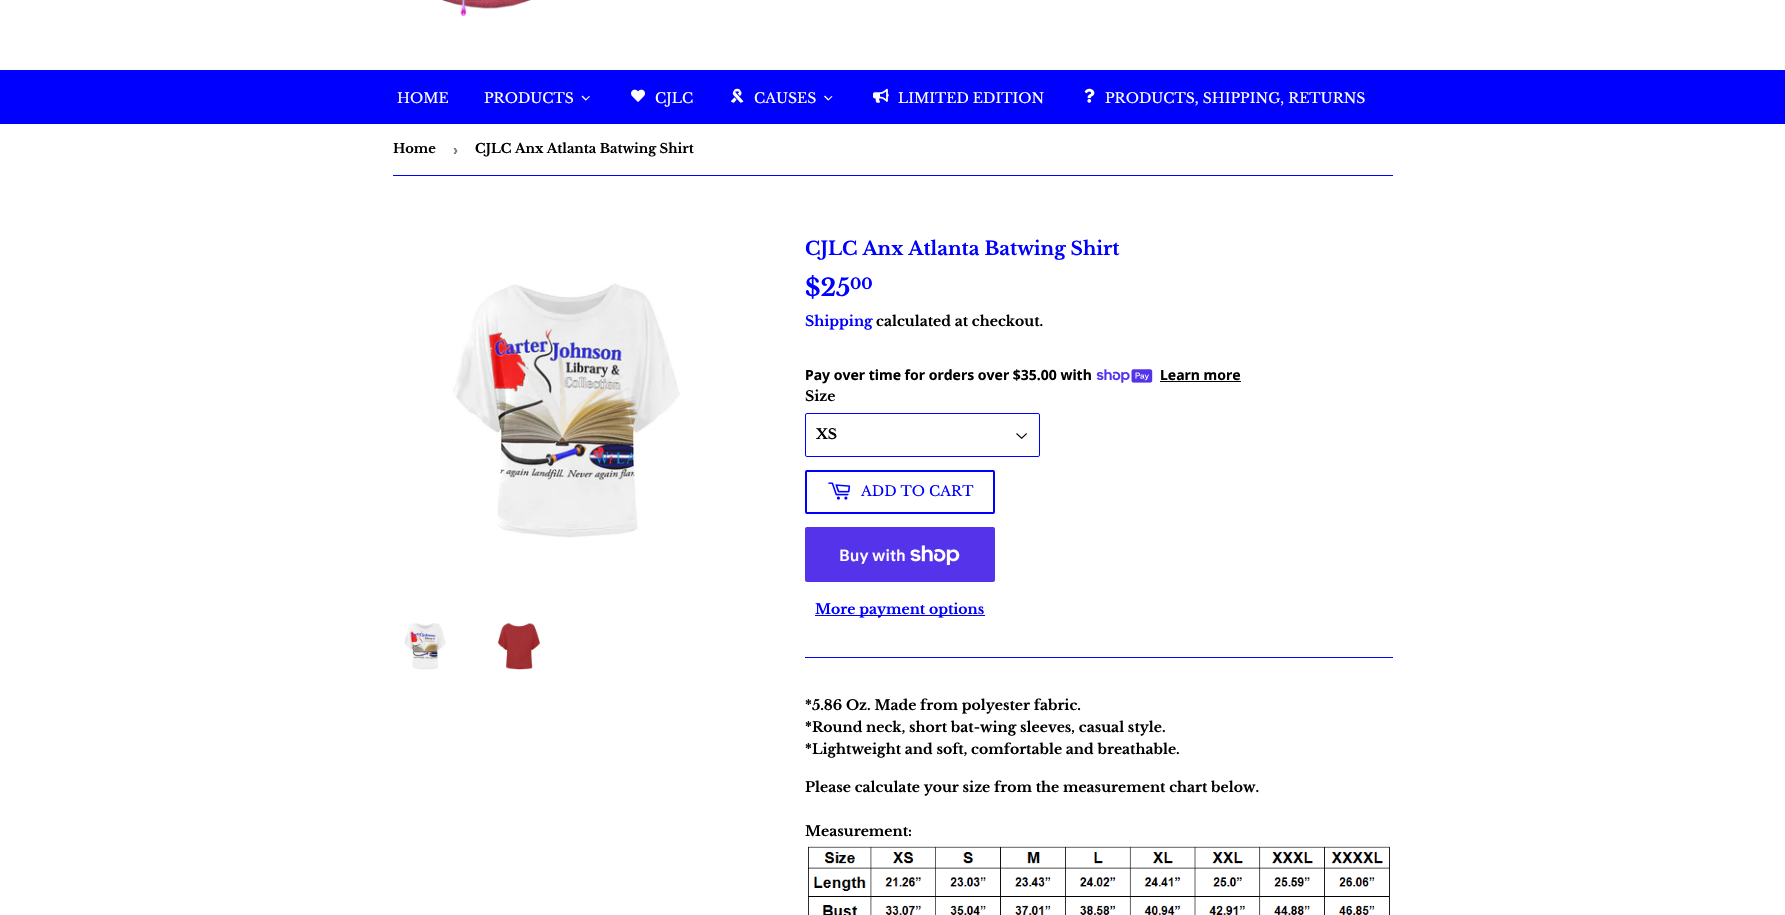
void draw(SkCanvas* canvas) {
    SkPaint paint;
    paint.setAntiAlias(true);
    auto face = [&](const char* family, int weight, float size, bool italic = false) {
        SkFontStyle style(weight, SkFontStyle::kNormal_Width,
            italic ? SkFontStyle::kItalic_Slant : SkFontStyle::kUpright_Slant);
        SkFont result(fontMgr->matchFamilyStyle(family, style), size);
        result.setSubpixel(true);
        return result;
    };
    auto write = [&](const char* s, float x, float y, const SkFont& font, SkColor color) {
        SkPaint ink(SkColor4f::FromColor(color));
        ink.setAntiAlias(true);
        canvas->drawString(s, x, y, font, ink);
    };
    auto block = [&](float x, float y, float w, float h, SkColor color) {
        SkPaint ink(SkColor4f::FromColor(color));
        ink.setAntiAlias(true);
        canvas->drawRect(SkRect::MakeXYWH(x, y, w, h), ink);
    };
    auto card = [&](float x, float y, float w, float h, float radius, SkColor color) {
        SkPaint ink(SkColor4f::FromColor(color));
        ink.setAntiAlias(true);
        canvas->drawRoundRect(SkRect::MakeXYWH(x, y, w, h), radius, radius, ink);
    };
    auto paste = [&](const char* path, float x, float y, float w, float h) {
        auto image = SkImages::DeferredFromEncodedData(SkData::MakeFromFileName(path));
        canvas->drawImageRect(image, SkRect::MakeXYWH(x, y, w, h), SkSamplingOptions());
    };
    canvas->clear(SK_ColorWHITE);
    paste("pic1.png", 442, 0, 89, 17);
    block(0, 70, 1785, 54, SkColorSetRGB(0, 0, 255));
    auto kFont1 = face("Libre Baskerville", 400, 14);
    write("HOME", 397, 103, kFont1, SK_ColorWHITE);
    write("PRODUCTS", 484, 103, kFont1, SK_ColorWHITE);
    paint.setColor(SK_ColorWHITE);
    canvas->drawPath(SkPathBuilder().moveTo(589, 96).lineTo(590, 96.5f).lineTo(586, 100.5f).lineTo(585.5f, 99.5f).close().detach(), paint);
    canvas->drawPath(SkPathBuilder().moveTo(582.5f, 95.5f).lineTo(586.5f, 99.5f).lineTo(585.5f, 100.5f).lineTo(581.5f, 96.5f).close().detach(), paint);
    paste("pic2.png", 631, 89, 14, 13);
    write("CJLC", 655, 103, kFont1, SK_ColorWHITE);
    paste("pic3.png", 731, 88, 13, 15);
    write("CAUSES", 754, 103, kFont1, SK_ColorWHITE);
    canvas->drawPath(SkPathBuilder().moveTo(831.5f, 96).lineTo(832.5f, 96.5f).lineTo(828.5f, 100.5f).lineTo(828, 99.5f).close().detach(), paint);
    canvas->drawPath(SkPathBuilder().moveTo(825, 95.5f).lineTo(829, 99.5f).lineTo(828, 100.5f).lineTo(824, 96.5f).close().detach(), paint);
    paste("pic4.png", 873, 88, 16, 15);
    write("LIMITED EDITION", 898, 103, kFont1, SK_ColorWHITE);
    paste("pic5.png", 1084, 88, 11, 15);
    write("PRODUCTS, SHIPPING, RETURNS", 1105, 103, kFont1, SK_ColorWHITE);
    block(393, 175, 1000, 1, SkColorSetRGB(0, 0, 255));
    auto kFont2 = face("Libre Baskerville", 700, 13);
    write("Home", 393, 153, kFont2, SK_ColorBLACK);
    auto kFont3 = face("Liberation Sans", 700, 15);
    write("›", 453, 155, kFont3, SkColorSetRGB(118, 118, 118));
    write("CJLC Anx Atlanta Batwing Shirt", 475, 153, kFont2, SK_ColorBLACK);
    paste("pic6.png", 453, 283, 227, 255);
    paste("pic7.png", 404, 623, 42, 47);
    paste("pic8.png", 497, 622, 44, 48);
    auto kFont4 = face("Libre Baskerville", 700, 18.7f);
    write("CJLC Anx Atlanta Batwing Shirt", 805, 255, kFont4, SkColorSetRGB(0, 0, 255));
    auto kFont5 = face("Libre Baskerville", 700, 24);
    write("$25", 805, 296, kFont5, SkColorSetRGB(0, 0, 255));
    auto kFont6 = face("Libre Baskerville", 700, 15);
    write("00", 850, 289, kFont6, SkColorSetRGB(0, 0, 255));
    auto kFont7 = face("Libre Baskerville", 700, 14);
    write("Shipping", 805, 326, kFont7, SkColorSetRGB(0, 0, 255));
    write("calculated at checkout.", 876, 326, kFont7, SK_ColorBLACK);
    auto kFont8 = face("Noto Sans", 700, 14);
    write("Pay over time for orders over $35.00 with", 805, 380, kFont8, SK_ColorBLACK);
    paste("pic9.png", 1096, 369, 57, 14);
    write("Learn more", 1160, 380, kFont8, SK_ColorBLACK);
    block(1160, 381, 81, 1, SK_ColorBLACK);
    write("Size", 805, 401, kFont7, SK_ColorBLACK);
    paste("pic10.png", 1016, 433, 11, 6);
    paint.setStyle(SkPaint::kStroke_Style);
    paint.setStrokeWidth(1);
    paint.setColor(SkColorSetRGB(0, 0, 255));
    canvas->drawRoundRect(SkRect::MakeXYWH(805.5f, 413.5f, 234, 43), 1.5f, 1.5f, paint);
    write("XS", 816, 439, kFont7, SK_ColorBLACK);
    paint.setStrokeWidth(2);
    canvas->drawRoundRect(SkRect::MakeXYWH(806, 471, 188, 42), 1, 1, paint);
    paste("pic11.png", 828, 482, 23, 18);
    write("ADD TO CART", 861, 496, kFont1, SkColorSetRGB(0, 0, 255));
    card(805, 527, 190, 55, 2, SkColorSetRGB(84, 51, 235));
    auto kFont9 = face("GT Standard", 600, 16);
    write("Buy with", 839, 561, kFont9, SK_ColorWHITE);
    paste("pic12.png", 910, 545, 50, 20);
    block(815, 615, 170, 1, SkColorSetRGB(0, 0, 255));
    write("More payment options", 815, 614, kFont7, SkColorSetRGB(0, 0, 255));
    block(805, 657, 588, 1, SkColorSetRGB(0, 0, 255));
    write("*5.86 Oz. Made from polyester fabric.", 805, 710, kFont7, SK_ColorBLACK);
    write("*Round neck, short bat-wing sleeves, casual style.", 805, 732, kFont7, SK_ColorBLACK);
    write("*Lightweight and soft, comfortable and breathable.", 805, 754, kFont7, SK_ColorBLACK);
    write("Please calculate your size from the measurement chart below.", 805, 792, kFont7, SK_ColorBLACK);
    write("Measurement:", 805, 836, kFont7, SK_ColorBLACK);
    paste("pic13.png", 808, 846, 582, 69);
}
